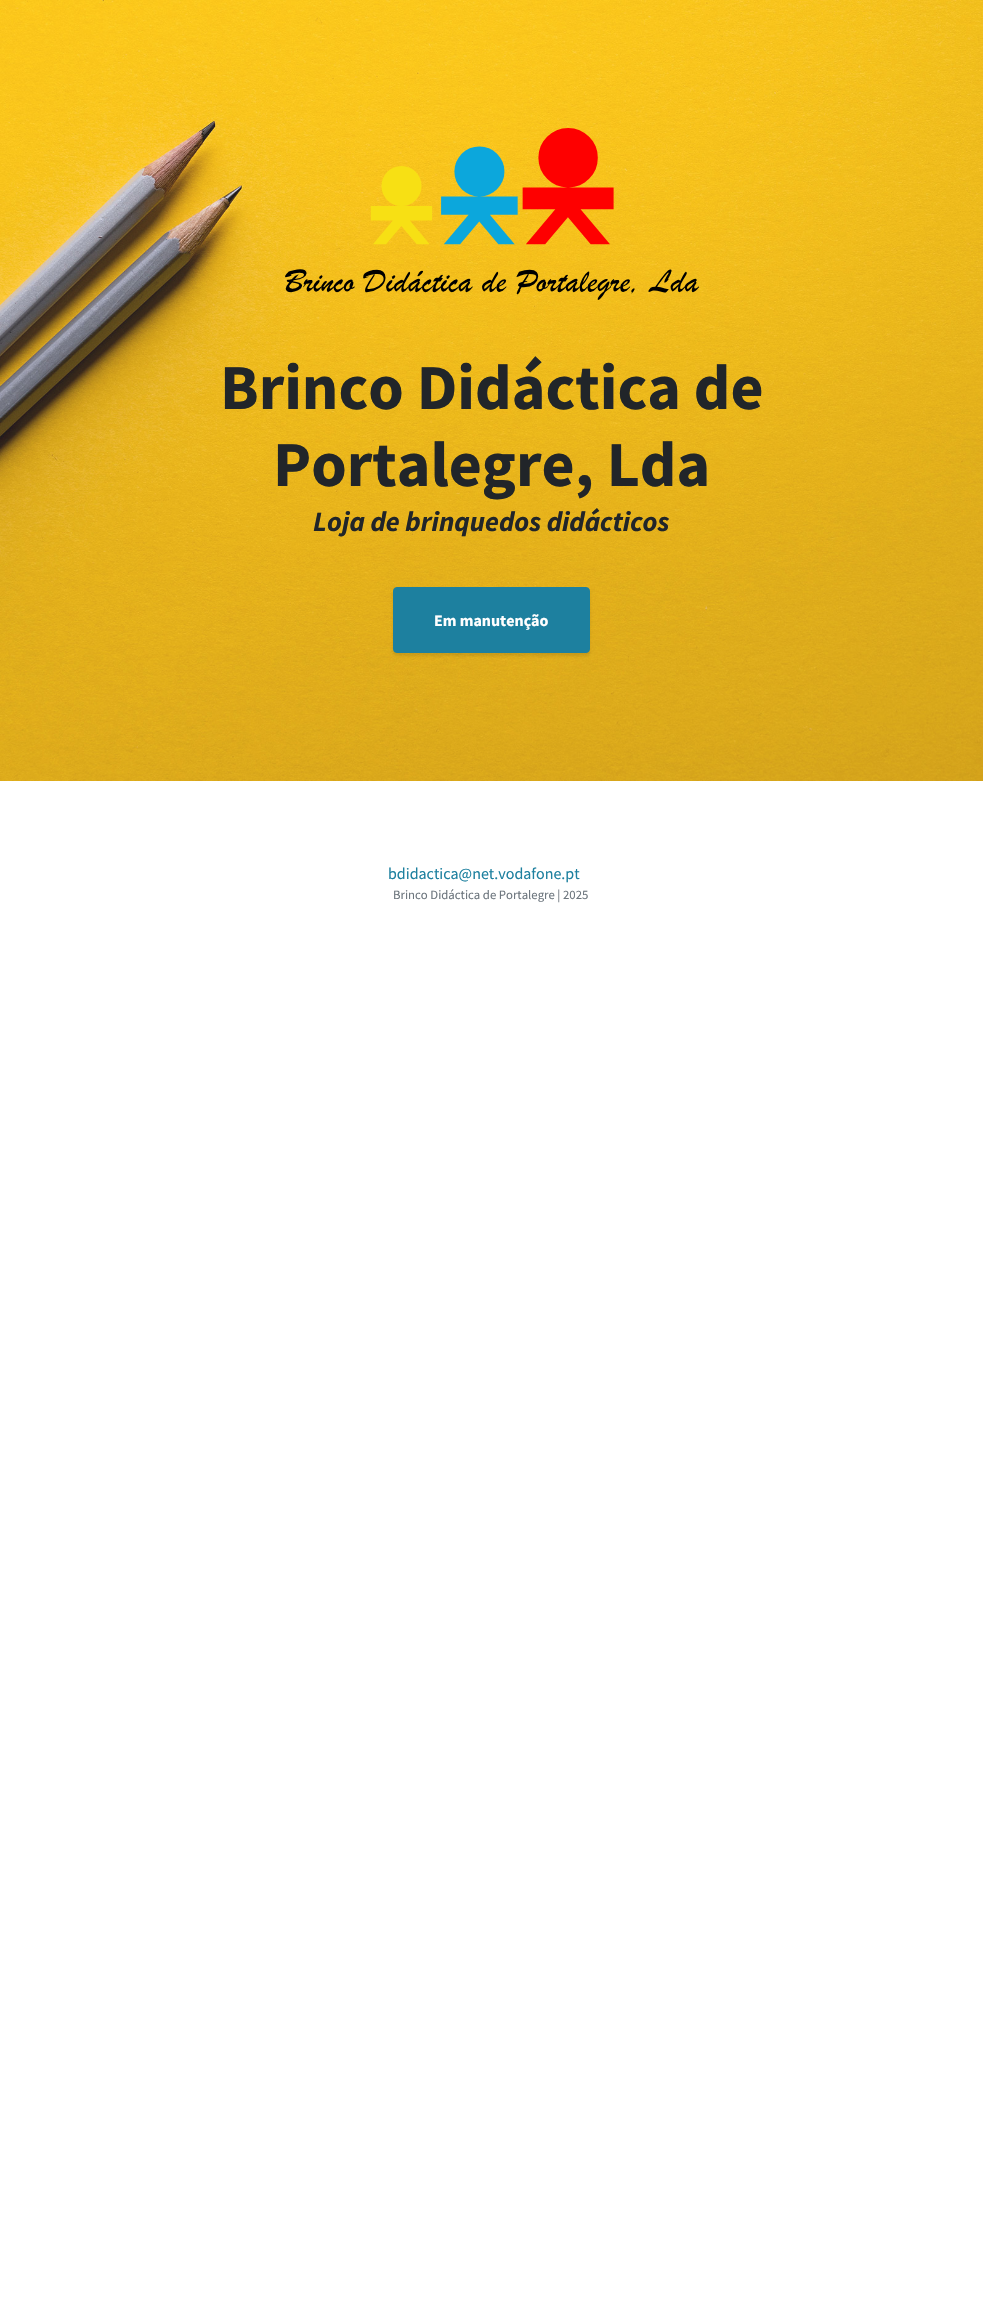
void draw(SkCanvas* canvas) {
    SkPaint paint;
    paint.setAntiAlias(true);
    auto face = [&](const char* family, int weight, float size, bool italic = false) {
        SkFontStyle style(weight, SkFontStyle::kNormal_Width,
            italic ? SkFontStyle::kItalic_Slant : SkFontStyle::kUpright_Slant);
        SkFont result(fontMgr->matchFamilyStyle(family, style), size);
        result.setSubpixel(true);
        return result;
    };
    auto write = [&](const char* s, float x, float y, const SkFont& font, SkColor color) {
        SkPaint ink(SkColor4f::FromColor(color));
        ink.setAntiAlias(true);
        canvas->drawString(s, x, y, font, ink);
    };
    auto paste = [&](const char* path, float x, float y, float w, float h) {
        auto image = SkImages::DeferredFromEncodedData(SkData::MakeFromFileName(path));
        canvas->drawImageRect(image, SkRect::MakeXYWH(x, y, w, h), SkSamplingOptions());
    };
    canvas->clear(SK_ColorWHITE);
    paste("pic1.png", 0, 0, 983, 781);
    paste("pic2.png", 285, 128, 414, 172);
    auto kFont1 = face("Source Sans Pro", 700, 64);
    write("Brinco Didáctica de", 220, 409, kFont1, SkColorSetRGB(33, 37, 41));
    write("Portalegre, Lda", 273, 486, kFont1, SkColorSetRGB(33, 37, 41));
    auto kFont2 = face("Source Sans Pro", 700, 28, true);
    write("Loja de brinquedos didácticos", 313, 531, kFont2, SkColorSetRGB(33, 37, 41));
    paint.setColor(SkColorSetARGB(26, 0, 0, 0));
    paint.setMaskFilter(SkMaskFilter::MakeBlur(kNormal_SkBlurStyle, 1.5f));
    canvas->drawRoundRect(SkRect::MakeXYWH(393, 590, 197, 66), 4, 4, paint);
    paint.setMaskFilter(nullptr);
    paint.setColor(SkColorSetRGB(29, 128, 159));
    canvas->drawRoundRect(SkRect::MakeXYWH(393.5f, 587.5f, 196, 65), 3.5f, 3.5f, paint);
    paint.setStyle(SkPaint::kStroke_Style);
    paint.setStrokeWidth(1);
    canvas->drawRoundRect(SkRect::MakeXYWH(393.5f, 587.5f, 196, 65), 3.5f, 3.5f, paint);
    auto kFont3 = face("Source Sans Pro", 700, 16);
    write("Em manutenção", 434, 626, kFont3, SK_ColorWHITE);
    auto kFont4 = face("Source Sans Pro", 400, 16);
    write("bdidactica@net.vodafone.pt", 388, 879, kFont4, SkColorSetRGB(29, 128, 159));
    auto kFont5 = face("Source Sans Pro", 400, 12.75f);
    write("Brinco Didáctica de Portalegre | 2025", 393, 899, kFont5, SkColorSetRGB(108, 117, 125));
}
